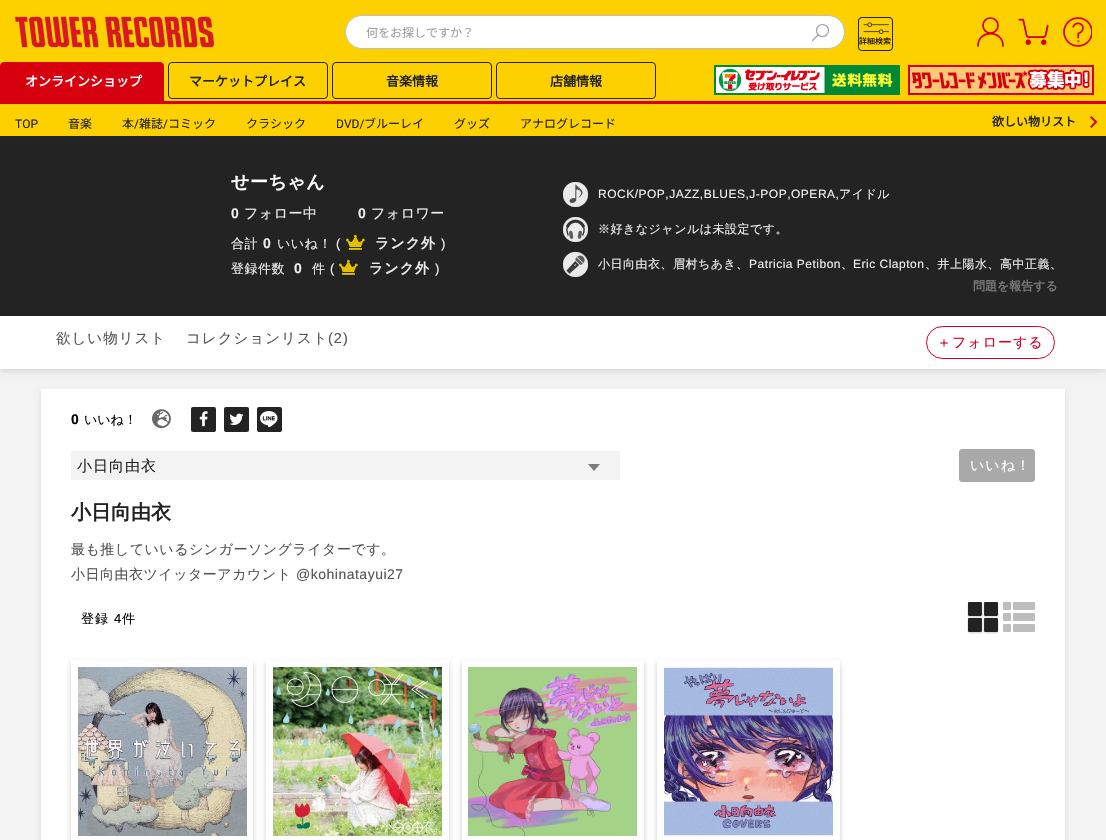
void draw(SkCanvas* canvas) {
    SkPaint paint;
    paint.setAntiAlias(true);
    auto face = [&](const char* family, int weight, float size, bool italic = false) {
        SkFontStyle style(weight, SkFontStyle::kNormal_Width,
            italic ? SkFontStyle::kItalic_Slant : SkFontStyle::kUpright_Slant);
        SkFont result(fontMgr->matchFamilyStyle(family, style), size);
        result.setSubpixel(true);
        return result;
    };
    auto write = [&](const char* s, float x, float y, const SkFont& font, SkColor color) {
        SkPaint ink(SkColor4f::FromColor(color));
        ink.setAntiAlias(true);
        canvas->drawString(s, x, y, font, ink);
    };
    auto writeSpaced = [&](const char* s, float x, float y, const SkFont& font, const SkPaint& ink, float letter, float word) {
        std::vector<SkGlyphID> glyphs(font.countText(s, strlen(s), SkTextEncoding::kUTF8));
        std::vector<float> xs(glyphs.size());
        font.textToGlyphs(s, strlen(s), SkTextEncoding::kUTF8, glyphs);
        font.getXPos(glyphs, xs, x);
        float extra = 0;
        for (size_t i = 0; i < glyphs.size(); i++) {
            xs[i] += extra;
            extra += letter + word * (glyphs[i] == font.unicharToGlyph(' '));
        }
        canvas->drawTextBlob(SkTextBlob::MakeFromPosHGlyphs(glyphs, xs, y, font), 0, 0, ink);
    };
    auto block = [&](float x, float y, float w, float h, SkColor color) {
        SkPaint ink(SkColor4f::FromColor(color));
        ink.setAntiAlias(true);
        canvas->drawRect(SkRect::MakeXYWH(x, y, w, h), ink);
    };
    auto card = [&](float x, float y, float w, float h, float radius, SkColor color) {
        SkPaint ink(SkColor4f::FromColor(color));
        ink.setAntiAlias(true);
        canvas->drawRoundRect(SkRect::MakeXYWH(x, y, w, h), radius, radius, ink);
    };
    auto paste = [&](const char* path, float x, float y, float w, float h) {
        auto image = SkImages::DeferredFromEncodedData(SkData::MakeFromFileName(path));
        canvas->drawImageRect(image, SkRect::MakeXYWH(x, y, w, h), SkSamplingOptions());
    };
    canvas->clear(SkColorSetRGB(243, 243, 243));
    block(0, 0, 1106, 136, SkColorSetRGB(253, 208, 0));
    paste("pic1.png", 15, 16, 199, 32);
    paint.setColor(SK_ColorWHITE);
    canvas->drawRoundRect(SkRect::MakeXYWH(345.5f, 15.5f, 499, 33), 16.5f, 16.5f, paint);
    paint.setStyle(SkPaint::kStroke_Style);
    paint.setStrokeWidth(1);
    paint.setColor(SkColorSetRGB(192, 192, 192));
    canvas->drawRoundRect(SkRect::MakeXYWH(345.5f, 15.5f, 499, 33), 16.5f, 16.5f, paint);
    auto kFont1 = face("Noto Sans JP", 100, 12);
    write("何をお探しですか？", 366, 37, kFont1, SkColorSetRGB(158, 158, 158));
    paint.setStrokeWidth(1.2f);
    paint.setColor(SkColorSetRGB(158, 158, 158));
    canvas->drawCircle(822.5f, 30.5f, 6, paint);
    paint.setStrokeCap(SkPaint::kRound_Cap);
    paint.setStrokeJoin(SkPaint::kRound_Join);
    canvas->drawPath(SkPathBuilder().moveTo(818.5f, 34.5f).lineTo(812.5f, 40.5f).detach(), paint);
    paste("pic2.png", 858, 17, 35, 34);
    auto kFont2 = face("Noto Sans JP", 100, 8);
    write("詳細検索", 859, 44, kFont2, SK_ColorBLACK);
    paint.setStrokeWidth(1.7f);
    paint.setStrokeCap(SkPaint::kButt_Cap);
    paint.setStrokeJoin(SkPaint::kMiter_Join);
    paint.setColor(SkColorSetRGB(214, 0, 16));
    canvas->drawCircle(990.5f, 25.5f, 7.5f, paint);
    paint.setStrokeCap(SkPaint::kRound_Cap);
    paint.setStrokeJoin(SkPaint::kRound_Join);
    canvas->drawPath(SkPathBuilder().moveTo(1003, 46).cubicTo(1003, 29.5f, 978, 29.5f, 978, 46).detach(), paint);
    paste("pic3.png", 1018, 18, 31, 27);
    paste("pic4.png", 1063, 17, 29, 30);
    block(0, 101, 1106, 3, SkColorSetRGB(214, 0, 15));
    paint.setStyle(SkPaint::kFill_Style);
    paint.setColor(SkColorSetRGB(214, 0, 15));
    canvas->drawPath(SkPathBuilder().moveTo(4, 62.5f).lineTo(160, 62.5f).cubicTo(162, 62.5f, 163.5f, 64, 163.5f, 66).lineTo(163.5f, 102.5f).lineTo(0.5f, 102.5f).lineTo(0.5f, 66).cubicTo(0.5f, 64, 2, 62.5f, 4, 62.5f).close().detach(), paint);
    paint.setStyle(SkPaint::kStroke_Style);
    paint.setStrokeWidth(1);
    paint.setStrokeCap(SkPaint::kButt_Cap);
    paint.setStrokeJoin(SkPaint::kMiter_Join);
    canvas->drawPath(SkPathBuilder().moveTo(4, 62.5f).lineTo(160, 62.5f).cubicTo(162, 62.5f, 163.5f, 64, 163.5f, 66).lineTo(163.5f, 102.5f).lineTo(0.5f, 102.5f).lineTo(0.5f, 66).cubicTo(0.5f, 64, 2, 62.5f, 4, 62.5f).close().detach(), paint);
    auto kFont3 = face("Noto Sans JP", 700, 13);
    write("オンラインショップ", 25, 86, kFont3, SK_ColorWHITE);
    paint.setColor(SkColorSetRGB(35, 35, 35));
    canvas->drawRoundRect(SkRect::MakeXYWH(168.5f, 62.5f, 159, 36), 3.5f, 3.5f, paint);
    write("マーケットプレイス", 189, 86, kFont3, SkColorSetRGB(35, 35, 35));
    canvas->drawRoundRect(SkRect::MakeXYWH(332.5f, 62.5f, 159, 36), 3.5f, 3.5f, paint);
    write("音楽情報", 386, 86, kFont3, SkColorSetRGB(35, 35, 35));
    canvas->drawRoundRect(SkRect::MakeXYWH(496.5f, 62.5f, 159, 36), 3.5f, 3.5f, paint);
    write("店舗情報", 550, 86, kFont3, SkColorSetRGB(35, 35, 35));
    paste("pic5.png", 714, 65, 186, 30);
    paste("pic6.png", 908, 65, 186, 30);
    auto kFont4 = face("Roboto", 400, 12);
    write("TOP", 15, 128, kFont4, SkColorSetRGB(35, 35, 35));
    write("音楽", 68, 128, kFont1, SkColorSetRGB(35, 35, 35));
    write("本", 122, 128, kFont1, SkColorSetRGB(35, 35, 35));
    write("/", 134, 128, kFont4, SkColorSetRGB(35, 35, 35));
    write("雑誌", 139, 128, kFont1, SkColorSetRGB(35, 35, 35));
    write("/", 163, 128, kFont4, SkColorSetRGB(35, 35, 35));
    write("コミック", 168, 128, kFont1, SkColorSetRGB(35, 35, 35));
    write("クラシック", 246, 128, kFont1, SkColorSetRGB(35, 35, 35));
    write("DVD/", 336, 128, kFont4, SkColorSetRGB(35, 35, 35));
    write("ブルーレイ", 364, 128, kFont1, SkColorSetRGB(35, 35, 35));
    write("グッズ", 454, 128, kFont1, SkColorSetRGB(35, 35, 35));
    write("アナログレコード", 520, 128, kFont1, SkColorSetRGB(35, 35, 35));
    auto kFont5 = face("Noto Sans JP", 700, 12);
    write("欲しい物リスト", 992, 126, kFont5, SkColorSetRGB(35, 35, 35));
    paste("pic7.png", 1090, 116, 8, 12);
    block(0, 136, 1106, 180, SkColorSetRGB(35, 35, 35));
    auto kFont6 = face("WenQuanYi Zen Hei", 700, 18);
    paint.setStyle(SkPaint::kFill_Style);
    paint.setColor(SK_ColorWHITE);
    writeSpaced("せーちゃん", 231, 188, kFont6, paint, 0.5f, 0);
    auto kFont7 = face("Liberation Sans", 700, 14);
    paint.setColor(SkColorSetRGB(237, 237, 237));
    writeSpaced("0", 231, 218, kFont7, paint, 1, 0);
    auto kFont8 = face("WenQuanYi Zen Hei", 500, 14);
    writeSpaced("フォロー中", 244, 218, kFont8, paint, 0.5f, 0);
    writeSpaced("0", 358, 218, kFont7, paint, 1, 0);
    writeSpaced("フォロワー", 371, 218, kFont8, paint, 0.5f, 0);
    auto kFont9 = face("WenQuanYi Zen Hei", 500, 13);
    writeSpaced("合計", 231, 248, kFont9, paint, 0.5f, 0);
    writeSpaced("0", 263, 248, kFont7, paint, 1, 0);
    writeSpaced("いいね！", 277, 248, kFont9, paint, 0.5f, 0);
    auto kFont10 = face("Liberation Sans", 400, 13);
    writeSpaced("(", 336, 248, kFont10, paint, 0.5f, 0);
    paste("pic8.png", 346, 234, 19, 16);
    auto kFont11 = face("WenQuanYi Zen Hei", 700, 14);
    writeSpaced("ランク外", 375, 248, kFont11, paint, 1, 0);
    writeSpaced(")", 441, 248, kFont10, paint, 0.5f, 0);
    writeSpaced("登録件数", 231, 273, kFont9, paint, 0.5f, 0);
    writeSpaced("0", 294, 273, kFont7, paint, 1, 0);
    writeSpaced("件", 312, 273, kFont9, paint, 0.5f, 0);
    writeSpaced("(", 330, 273, kFont10, paint, 0.5f, 0);
    paste("pic8.png", 339, 259, 19, 16);
    writeSpaced("ランク外", 369, 273, kFont11, paint, 1, 0);
    writeSpaced(")", 435, 273, kFont10, paint, 0.5f, 0);
    paste("pic9.png", 563, 182, 25, 25);
    auto kFont12 = face("Liberation Sans", 400, 12);
    writeSpaced("ROCK/POP,JAZZ,BLUES,J-POP,OPERA,", 598, 198, kFont12, paint, 0.5f, 0);
    auto kFont13 = face("WenQuanYi Zen Hei", 500, 12);
    writeSpaced("アイドル", 839, 198, kFont13, paint, 0.5f, 0);
    paste("pic10.png", 563, 217, 25, 25);
    writeSpaced("※好きなジャンルは未設定です。", 598, 233, kFont13, paint, 0.5f, 0);
    paste("pic11.png", 563, 252, 25, 25);
    writeSpaced("小日向由衣、眉村ちあき、", 598, 268, kFont13, paint, 0.5f, 0);
    writeSpaced("Patricia Petibon", 749, 268, kFont12, paint, 0.5f, 0);
    writeSpaced("、", 841, 268, kFont13, paint, 0.5f, 0);
    writeSpaced("Eric Clapton", 853, 268, kFont12, paint, 0.5f, 0);
    writeSpaced("、井上陽水、高中正義、", 925, 268, kFont13, paint, 0.5f, 0);
    auto kFont14 = face("WenQuanYi Zen Hei", 700, 12);
    write("問題を報告する", 973, 290, kFont14, SkColorSetRGB(120, 120, 120));
    paint.setColor(SkColorSetARGB(26, 0, 0, 0));
    paint.setMaskFilter(SkMaskFilter::MakeBlur(kNormal_SkBlurStyle, 2.5f));
    canvas->drawRect(SkRect::MakeXYWH(0, 319, 1106, 53), paint);
    paint.setMaskFilter(nullptr);
    block(0, 316, 1106, 53, SK_ColorWHITE);
    auto kFont15 = face("WenQuanYi Zen Hei", 500, 14.5f);
    paint.setColor(SkColorSetRGB(83, 83, 83));
    writeSpaced("欲しい物リスト", 56, 343, kFont15, paint, 1, 0);
    writeSpaced("コレクションリスト", 186, 343, kFont15, paint, 1, 0);
    auto kFont16 = face("Liberation Sans", 400, 14.5f);
    writeSpaced("(2)", 328, 343, kFont16, paint, 1, 0);
    paint.setStyle(SkPaint::kStroke_Style);
    paint.setColor(SkColorSetRGB(214, 0, 36));
    canvas->drawRoundRect(SkRect::MakeXYWH(926.5f, 326.5f, 128, 32), 16, 16, paint);
    paint.setStyle(SkPaint::kFill_Style);
    writeSpaced("＋フォローする", 937, 347, kFont8, paint, 1, 0);
    paint.setColor(SkColorSetARGB(26, 0, 0, 0));
    paint.setMaskFilter(SkMaskFilter::MakeBlur(kNormal_SkBlurStyle, 2.5f));
    canvas->drawRect(SkRect::MakeXYWH(41, 392, 1024, 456), paint);
    paint.setMaskFilter(nullptr);
    block(41, 389, 1024, 451, SK_ColorWHITE);
    write("0", 71, 424, kFont7, SK_ColorBLACK);
    write("いいね！", 84, 424, kFont9, SK_ColorBLACK);
    paste("pic12.png", 152, 409, 19, 20);
    card(191, 407, 25, 25, 2, SkColorSetRGB(35, 35, 35));
    paste("pic13.png", 199, 411, 9, 16);
    card(224, 407, 25, 25, 2, SkColorSetRGB(35, 35, 35));
    paste("pic14.png", 229, 413, 15, 12);
    card(257, 407, 25, 25, 2, SkColorSetRGB(35, 35, 35));
    paste("pic15.png", 260, 411, 18, 16);
    block(71, 451, 549, 29, SkColorSetRGB(243, 243, 243));
    auto kFont17 = face("WenQuanYi Zen Hei", 500, 15);
    paint.setColor(SkColorSetRGB(35, 35, 35));
    writeSpaced("小日向由衣", 77, 471, kFont17, paint, 1, 0);
    paint.setColor(SkColorSetRGB(123, 123, 123));
    canvas->drawPath(SkPathBuilder().moveTo(588, 464).lineTo(600, 464).lineTo(594, 471).close().detach(), paint);
    paint.setColor(SkColorSetRGB(169, 169, 169));
    canvas->drawRoundRect(SkRect::MakeXYWH(959.5f, 449.5f, 75, 32), 2.5f, 2.5f, paint);
    paint.setStyle(SkPaint::kStroke_Style);
    canvas->drawRoundRect(SkRect::MakeXYWH(959.5f, 449.5f, 75, 32), 2.5f, 2.5f, paint);
    paint.setStyle(SkPaint::kFill_Style);
    paint.setColor(SK_ColorWHITE);
    writeSpaced("いいね！", 970, 470, kFont8, paint, 1, 0);
    auto kFont18 = face("WenQuanYi Zen Hei", 700, 20);
    write("小日向由衣", 71, 519, kFont18, SkColorSetRGB(35, 35, 35));
    paint.setColor(SkColorSetRGB(83, 83, 83));
    writeSpaced("最も推していいるシンガーソングライターです。", 71, 554, kFont8, paint, 0.5f, 0);
    writeSpaced("小日向由衣ツイッターアカウント", 71, 579, kFont8, paint, 0.5f, 0);
    auto kFont19 = face("Liberation Sans", 400, 14);
    writeSpaced("@kohinatayui27", 296, 579, kFont19, paint, 0.5f, 0);
    paint.setColor(SK_ColorBLACK);
    writeSpaced("登録", 81, 623, kFont9, paint, 1, 0);
    writeSpaced("4", 114, 623, kFont10, paint, 1, 0);
    writeSpaced("件", 122, 623, kFont9, paint, 1, 0);
    paste("pic16.png", 967, 602, 32, 32);
    card(1003, 602, 8, 8, 1, SkColorSetRGB(189, 189, 189));
    card(1013, 602, 22, 8, 1, SkColorSetRGB(189, 189, 189));
    card(1003, 613, 8, 8, 1, SkColorSetRGB(189, 189, 189));
    card(1013, 613, 22, 8, 1, SkColorSetRGB(189, 189, 189));
    card(1003, 624, 8, 8, 1, SkColorSetRGB(189, 189, 189));
    card(1013, 624, 22, 8, 1, SkColorSetRGB(189, 189, 189));
    canvas->save();
    canvas->clipPath(SkPathBuilder(SkPathFillType::kEvenOdd).moveTo(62, 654).lineTo(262, 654).lineTo(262, 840).lineTo(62, 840).close().moveTo(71, 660).lineTo(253, 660).lineTo(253, 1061).lineTo(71, 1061).close().detach(), true);
    paint.setColor(SkColorSetARGB(51, 0, 0, 0));
    paint.setMaskFilter(SkMaskFilter::MakeBlur(kNormal_SkBlurStyle, 2.5f));
    canvas->drawRect(SkRect::MakeXYWH(71, 663, 182, 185), paint);
    paint.setMaskFilter(nullptr);
    canvas->restore();
    paste("pic17.png", 78, 667, 169, 169);
    canvas->save();
    canvas->clipPath(SkPathBuilder(SkPathFillType::kEvenOdd).moveTo(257, 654).lineTo(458, 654).lineTo(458, 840).lineTo(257, 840).close().moveTo(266, 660).lineTo(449, 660).lineTo(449, 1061).lineTo(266, 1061).close().detach(), true);
    paint.setMaskFilter(SkMaskFilter::MakeBlur(kNormal_SkBlurStyle, 2.5f));
    canvas->drawRect(SkRect::MakeXYWH(266, 663, 183, 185), paint);
    paint.setMaskFilter(nullptr);
    canvas->restore();
    paste("pic18.png", 273, 667, 169, 169);
    canvas->save();
    canvas->clipPath(SkPathBuilder(SkPathFillType::kEvenOdd).moveTo(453, 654).lineTo(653, 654).lineTo(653, 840).lineTo(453, 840).close().moveTo(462, 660).lineTo(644, 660).lineTo(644, 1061).lineTo(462, 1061).close().detach(), true);
    paint.setMaskFilter(SkMaskFilter::MakeBlur(kNormal_SkBlurStyle, 2.5f));
    canvas->drawRect(SkRect::MakeXYWH(462, 663, 182, 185), paint);
    paint.setMaskFilter(nullptr);
    canvas->restore();
    paste("pic19.png", 468, 667, 169, 169);
    canvas->save();
    canvas->clipPath(SkPathBuilder(SkPathFillType::kEvenOdd).moveTo(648, 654).lineTo(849, 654).lineTo(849, 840).lineTo(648, 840).close().moveTo(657, 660).lineTo(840, 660).lineTo(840, 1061).lineTo(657, 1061).close().detach(), true);
    paint.setMaskFilter(SkMaskFilter::MakeBlur(kNormal_SkBlurStyle, 2.5f));
    canvas->drawRect(SkRect::MakeXYWH(657, 663, 183, 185), paint);
    paint.setMaskFilter(nullptr);
    canvas->restore();
    paste("pic20.png", 664, 667, 169, 169);
}
